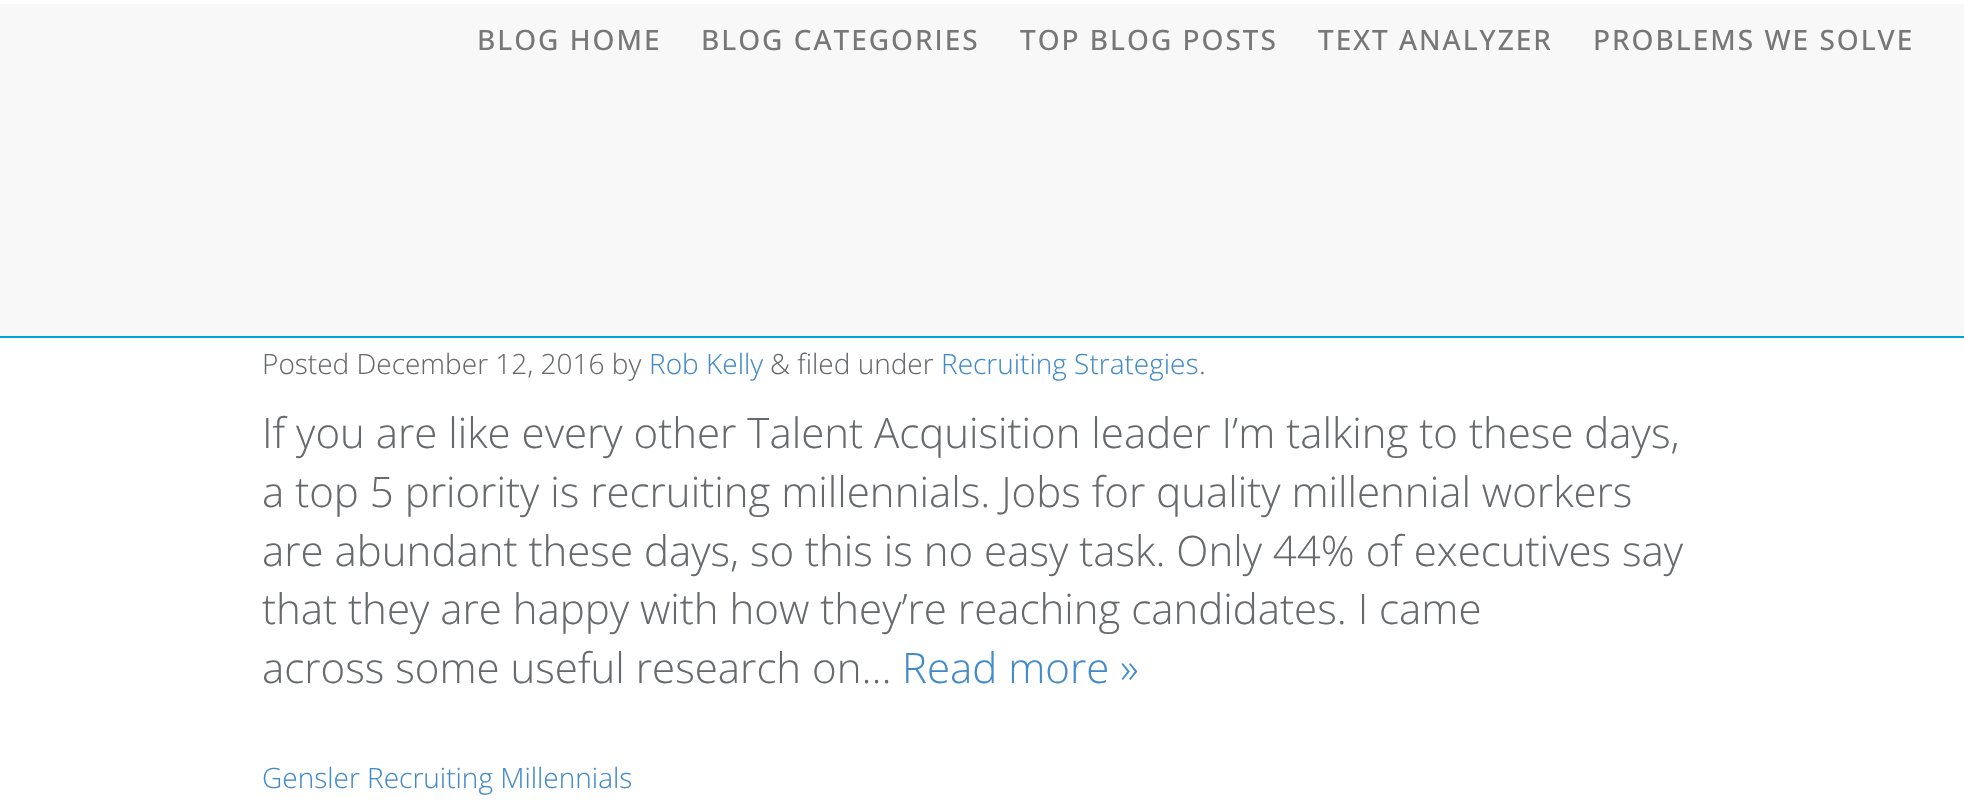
void draw(SkCanvas* canvas) {
    SkPaint paint;
    paint.setAntiAlias(true);
    auto face = [&](const char* family, int weight, float size, bool italic = false) {
        SkFontStyle style(weight, SkFontStyle::kNormal_Width,
            italic ? SkFontStyle::kItalic_Slant : SkFontStyle::kUpright_Slant);
        SkFont result(fontMgr->matchFamilyStyle(family, style), size);
        result.setSubpixel(true);
        return result;
    };
    auto write = [&](const char* s, float x, float y, const SkFont& font, SkColor color) {
        SkPaint ink(SkColor4f::FromColor(color));
        ink.setAntiAlias(true);
        canvas->drawString(s, x, y, font, ink);
    };
    auto writeSpaced = [&](const char* s, float x, float y, const SkFont& font, const SkPaint& ink, float letter, float word) {
        std::vector<SkGlyphID> glyphs(font.countText(s, strlen(s), SkTextEncoding::kUTF8));
        std::vector<float> xs(glyphs.size());
        font.textToGlyphs(s, strlen(s), SkTextEncoding::kUTF8, glyphs);
        font.getXPos(glyphs, xs, x);
        float extra = 0;
        for (size_t i = 0; i < glyphs.size(); i++) {
            xs[i] += extra;
            extra += letter + word * (glyphs[i] == font.unicharToGlyph(' '));
        }
        canvas->drawTextBlob(SkTextBlob::MakeFromPosHGlyphs(glyphs, xs, y, font), 0, 0, ink);
    };
    auto block = [&](float x, float y, float w, float h, SkColor color) {
        SkPaint ink(SkColor4f::FromColor(color));
        ink.setAntiAlias(true);
        canvas->drawRect(SkRect::MakeXYWH(x, y, w, h), ink);
    };
    canvas->clear(SK_ColorWHITE);
    block(0, 4, 1964, 332, SkColorSetRGB(248, 248, 248));
    block(0, 336, 1964, 2, SkColorSetRGB(2, 161, 215));
    auto kFont1 = face("Open Sans", 500, 28);
    paint.setColor(SkColorSetRGB(119, 119, 119));
    writeSpaced("BLOG HOME", 477, 50, kFont1, paint, 2, 0);
    writeSpaced("BLOG CATEGORIES", 701, 50, kFont1, paint, 2, 0);
    writeSpaced("TOP BLOG POSTS", 1020, 50, kFont1, paint, 2, 0);
    writeSpaced("TEXT ANALYZER", 1318, 50, kFont1, paint, 2, 0);
    writeSpaced("PROBLEMS WE SOLVE", 1593, 50, kFont1, paint, 2, 0);
    auto kFont2 = face("Open Sans", 300, 28);
    write("Posted December 12, 2016 by", 262, 374, kFont2, SkColorSetRGB(103, 106, 108));
    write("Rob Kelly", 649, 374, kFont2, SkColorSetRGB(66, 139, 202));
    write("& filed under", 770, 374, kFont2, SkColorSetRGB(103, 106, 108));
    write("Recruiting Strategies", 941, 374, kFont2, SkColorSetRGB(66, 139, 202));
    write(".", 1199, 374, kFont2, SkColorSetRGB(103, 106, 108));
    auto kFont3 = face("Open Sans", 300, 42);
    write("If you are like every other Talent Acquisition leader I’m talking to these days,", 262, 448, kFont3, SkColorSetRGB(103, 106, 108));
    write("a top 5 priority is recruiting millennials. Jobs for quality millennial workers", 262, 507, kFont3, SkColorSetRGB(103, 106, 108));
    write("are abundant these days, so this is no easy task. Only 44% of executives say", 262, 566, kFont3, SkColorSetRGB(103, 106, 108));
    write("that they are happy with how they’re reaching candidates. I came", 262, 624, kFont3, SkColorSetRGB(103, 106, 108));
    write("across some useful research on…", 262, 683, kFont3, SkColorSetRGB(103, 106, 108));
    write("Read more »", 902, 683, kFont3, SkColorSetRGB(66, 139, 202));
    write("Gensler Recruiting Millennials", 262, 788, kFont2, SkColorSetRGB(66, 139, 202));
}
